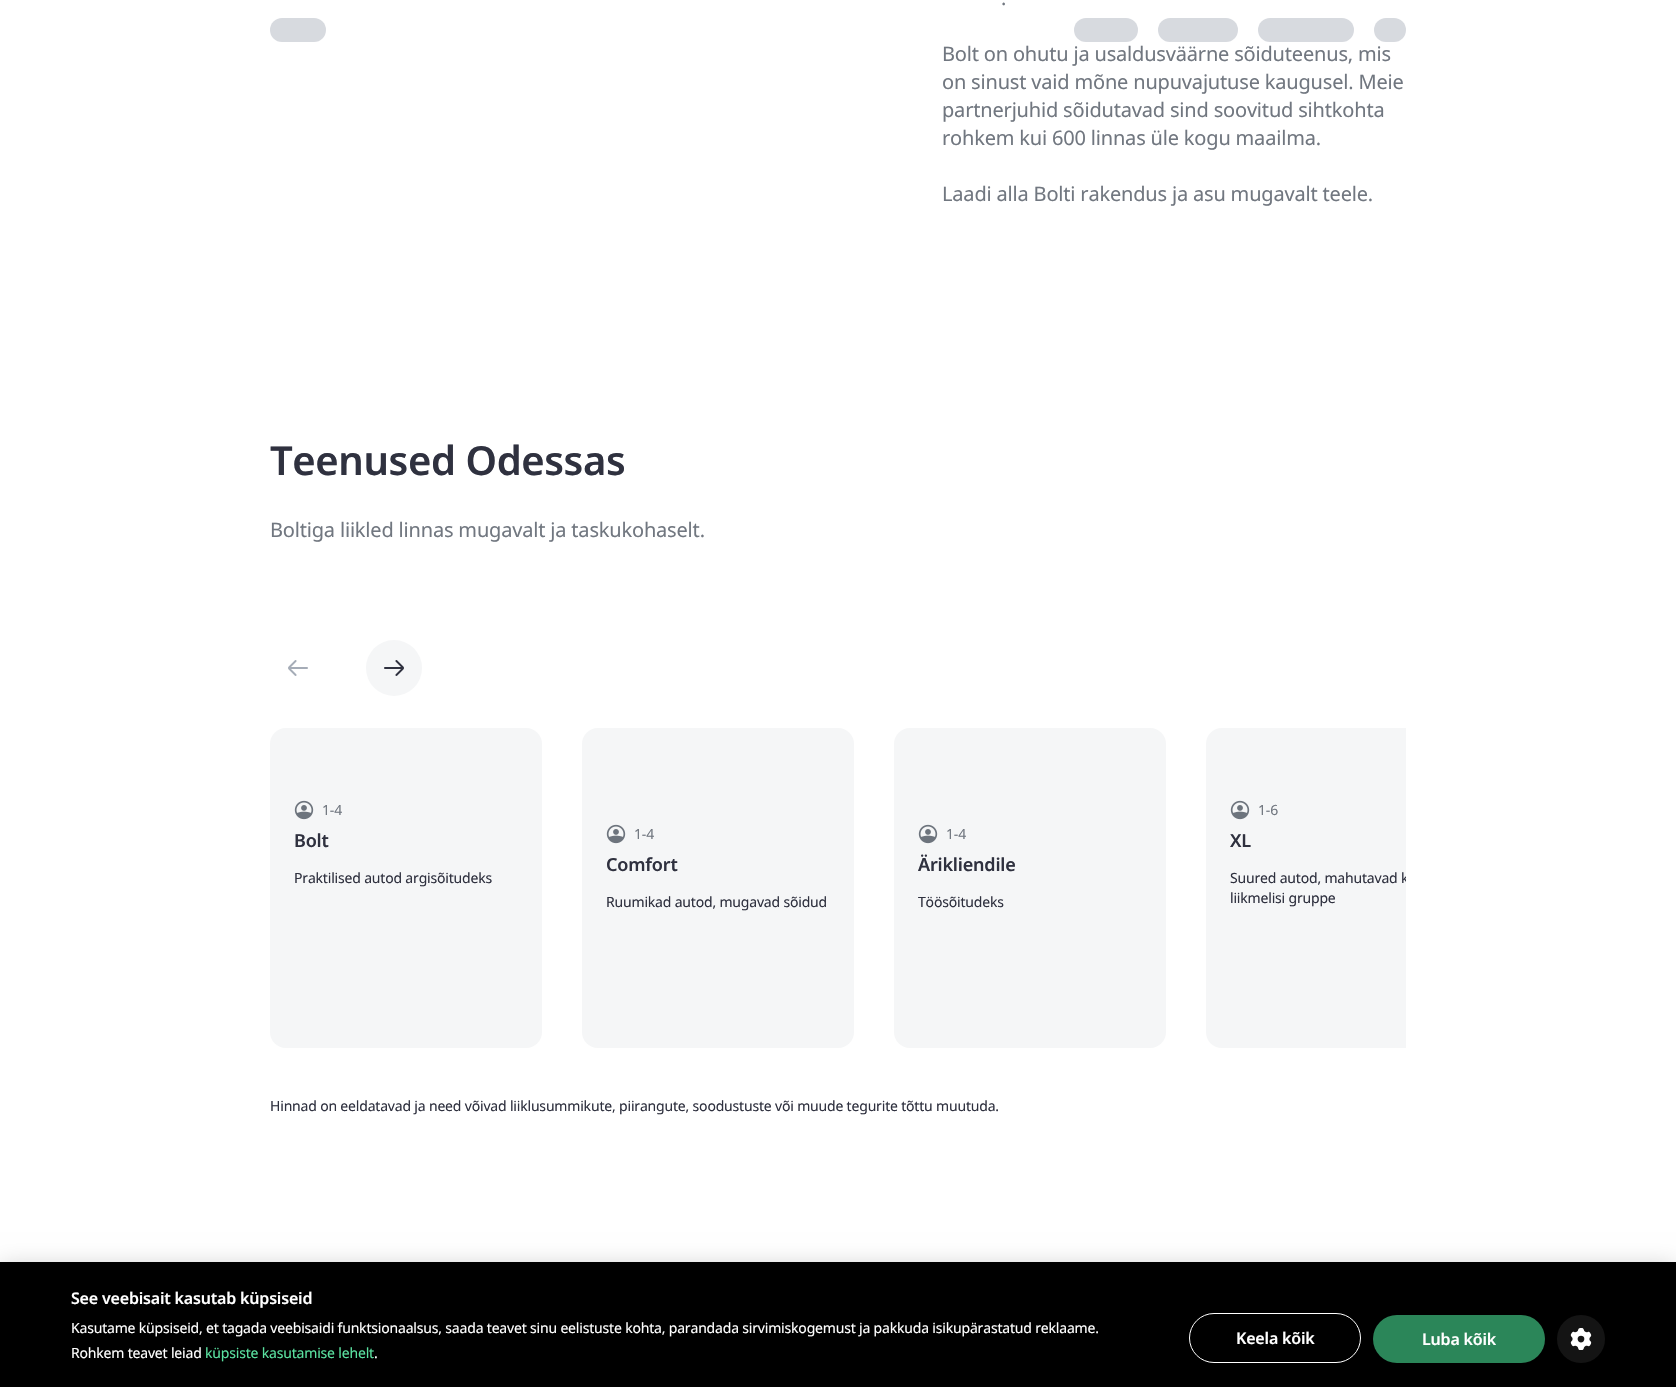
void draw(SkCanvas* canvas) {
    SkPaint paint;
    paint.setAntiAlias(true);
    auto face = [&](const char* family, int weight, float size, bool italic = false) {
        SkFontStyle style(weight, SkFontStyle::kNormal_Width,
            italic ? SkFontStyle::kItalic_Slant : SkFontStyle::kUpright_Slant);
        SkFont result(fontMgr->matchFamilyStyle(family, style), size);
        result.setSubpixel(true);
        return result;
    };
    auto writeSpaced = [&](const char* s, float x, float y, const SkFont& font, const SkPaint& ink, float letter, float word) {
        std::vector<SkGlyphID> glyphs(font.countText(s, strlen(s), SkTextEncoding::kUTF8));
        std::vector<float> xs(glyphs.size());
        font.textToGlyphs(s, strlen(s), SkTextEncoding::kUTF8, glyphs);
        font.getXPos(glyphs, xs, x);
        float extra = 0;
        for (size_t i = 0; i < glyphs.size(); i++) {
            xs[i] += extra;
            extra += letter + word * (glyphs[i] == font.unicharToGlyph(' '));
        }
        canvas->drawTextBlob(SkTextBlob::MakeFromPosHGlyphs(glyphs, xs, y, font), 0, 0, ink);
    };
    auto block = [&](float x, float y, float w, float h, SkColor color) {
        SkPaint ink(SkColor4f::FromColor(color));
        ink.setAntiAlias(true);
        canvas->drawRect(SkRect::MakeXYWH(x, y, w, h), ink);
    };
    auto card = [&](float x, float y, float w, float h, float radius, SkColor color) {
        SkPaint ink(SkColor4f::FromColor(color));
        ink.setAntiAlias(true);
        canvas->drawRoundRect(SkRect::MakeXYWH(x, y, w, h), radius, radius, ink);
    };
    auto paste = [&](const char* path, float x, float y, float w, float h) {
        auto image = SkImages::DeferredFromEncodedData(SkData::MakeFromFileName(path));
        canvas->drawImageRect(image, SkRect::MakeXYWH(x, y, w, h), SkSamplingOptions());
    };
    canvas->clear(SK_ColorWHITE);
    auto kFont1 = face("Noto Sans", 400, 20);
    paint.setColor(SkColorSetRGB(113, 119, 128));
    writeSpaced(".", 1001, 5, kFont1, paint, -0.18f, 0);
    writeSpaced("Bolt on ohutu ja usaldusväärne sõiduteenus, mis", 942, 61, kFont1, paint, -0.18f, 0);
    writeSpaced("on sinust vaid mõne nupuvajutuse kaugusel. Meie", 942, 89, kFont1, paint, -0.18f, 0);
    writeSpaced("partnerjuhid sõidutavad sind soovitud sihtkohta", 942, 117, kFont1, paint, -0.18f, 0);
    writeSpaced("rohkem kui 600 linnas üle kogu maailma.", 942, 145, kFont1, paint, -0.18f, 0);
    writeSpaced("Laadi alla Bolti rakendus ja asu mugavalt teele.", 942, 201, kFont1, paint, -0.18f, 0);
    auto kFont2 = face("Noto Sans", 600, 40);
    paint.setColor(SkColorSetRGB(47, 49, 63));
    writeSpaced("Teenused Odessas", 270, 475, kFont2, paint, -0.4f, 0);
    paint.setColor(SkColorSetRGB(113, 119, 128));
    writeSpaced("Boltiga liikled linnas mugavalt ja taskukohaselt.", 270, 537, kFont1, paint, -0.18f, 0);
    paste("pic1.png", 288, 660, 20, 16);
    paint.setColor(SkColorSetRGB(245, 246, 247));
    canvas->drawCircle(394, 668, 28, paint);
    paste("pic2.png", 384, 660, 20, 16);
    card(270, 728, 272, 320, 16, SkColorSetRGB(245, 246, 247));
    paste("pic3.png", 294, 800, 20, 20);
    auto kFont3 = face("Noto Sans", 400, 14);
    paint.setColor(SkColorSetRGB(113, 119, 128));
    writeSpaced("1-4", 322, 815, kFont3, paint, -0.18f, 0);
    auto kFont4 = face("Noto Sans", 600, 18);
    paint.setColor(SkColorSetRGB(47, 49, 63));
    writeSpaced("Bolt", 294, 847, kFont4, paint, -0.18f, 0);
    writeSpaced("Praktilised autod argisõitudeks", 294, 883, kFont3, paint, -0.18f, 0);
    card(582, 728, 272, 320, 16, SkColorSetRGB(245, 246, 247));
    paste("pic3.png", 606, 824, 20, 20);
    paint.setColor(SkColorSetRGB(113, 119, 128));
    writeSpaced("1-4", 634, 839, kFont3, paint, -0.18f, 0);
    paint.setColor(SkColorSetRGB(47, 49, 63));
    writeSpaced("Comfort", 606, 871, kFont4, paint, -0.18f, 0);
    writeSpaced("Ruumikad autod, mugavad sõidud", 606, 907, kFont3, paint, -0.18f, 0);
    card(894, 728, 272, 320, 16, SkColorSetRGB(245, 246, 247));
    paste("pic3.png", 918, 824, 20, 20);
    paint.setColor(SkColorSetRGB(113, 119, 128));
    writeSpaced("1-4", 946, 839, kFont3, paint, -0.18f, 0);
    paint.setColor(SkColorSetRGB(47, 49, 63));
    writeSpaced("Ärikliendile", 918, 871, kFont4, paint, -0.18f, 0);
    writeSpaced("Töösõitudeks", 918, 907, kFont3, paint, -0.18f, 0);
    paint.setColor(SkColorSetRGB(245, 246, 247));
    canvas->drawPath(SkPathBuilder().moveTo(1222, 728).lineTo(1406, 728).lineTo(1406, 1048).lineTo(1222, 1048).cubicTo(1213, 1048, 1206, 1041, 1206, 1032).lineTo(1206, 744).cubicTo(1206, 735, 1213, 728, 1222, 728).close().detach(), paint);
    paste("pic3.png", 1230, 800, 20, 20);
    paint.setColor(SkColorSetRGB(113, 119, 128));
    writeSpaced("1-6", 1258, 815, kFont3, paint, -0.18f, 0);
    paint.setColor(SkColorSetRGB(47, 49, 63));
    writeSpaced("XL", 1230, 847, kFont4, paint, -0.18f, 0);
    canvas->save();
    canvas->clipRect(SkRect::MakeXYWH(270, 728, 1136, 320));
    writeSpaced("Suured autod, mahutavad k", 1230, 883, kFont3, paint, -0.18f, 0);
    canvas->restore();
    writeSpaced("liikmelisi gruppe", 1230, 903, kFont3, paint, -0.18f, 0);
    writeSpaced("Hinnad on eeldatavad ja need võivad liiklusummikute, piirangute, soodustuste või muude tegurite tõttu muutuda.", 270, 1111, kFont3, paint, -0.18f, 0);
    card(270, 18, 56, 24, 12, SkColorSetRGB(215, 218, 223));
    card(1074, 18, 64, 24, 12, SkColorSetRGB(215, 218, 223));
    card(1158, 18, 80, 24, 12, SkColorSetRGB(215, 218, 223));
    card(1258, 18, 96, 24, 12, SkColorSetRGB(215, 218, 223));
    card(1374, 18, 32, 24, 12, SkColorSetRGB(215, 218, 223));
    paint.setColor(SkColorSetARGB(61, 0, 0, 0));
    paint.setMaskFilter(SkMaskFilter::MakeBlur(kNormal_SkBlurStyle, 12));
    canvas->drawRect(SkRect::MakeXYWH(0, 1268, 1676, 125), paint);
    paint.setMaskFilter(nullptr);
    block(0, 1262, 1676, 125, SK_ColorBLACK);
    auto kFont5 = face("Noto Sans", 600, 16);
    paint.setColor(SK_ColorWHITE);
    writeSpaced("See veebisait kasutab küpsiseid", 71, 1304, kFont5, paint, -0.18f, 0);
    writeSpaced("Kasutame küpsiseid, et tagada veebisaidi funktsionaalsus, saada teavet sinu eelistuste kohta, parandada sirvimiskogemust ja pakkuda isikupärastatud reklaame.", 71, 1333, kFont3, paint, -0.18f, 0);
    writeSpaced("Rohkem teavet leiad", 71, 1358, kFont3, paint, -0.18f, 0);
    paint.setColor(SkColorSetRGB(90, 225, 160));
    writeSpaced("küpsiste kasutamise lehelt", 205, 1358, kFont3, paint, -0.18f, 0);
    paint.setColor(SK_ColorWHITE);
    writeSpaced(".", 374, 1358, kFont3, paint, -0.18f, 0);
    paint.setStyle(SkPaint::kStroke_Style);
    paint.setStrokeWidth(1);
    canvas->drawRoundRect(SkRect::MakeXYWH(1189.5f, 1313.5f, 171, 49), 24.5f, 24.5f, paint);
    paint.setStyle(SkPaint::kFill_Style);
    writeSpaced("Keela kõik", 1236, 1344, kFont5, paint, -0.18f, 0);
    card(1373, 1315, 172, 48, 24, SkColorSetRGB(43, 134, 89));
    writeSpaced("Luba kõik", 1422, 1345, kFont5, paint, -0.18f, 0);
    paint.setColor(SkColorSetRGB(20, 20, 20));
    canvas->drawCircle(1581, 1339, 24, paint);
    paste("pic4.png", 1570, 1328, 22, 22);
}
